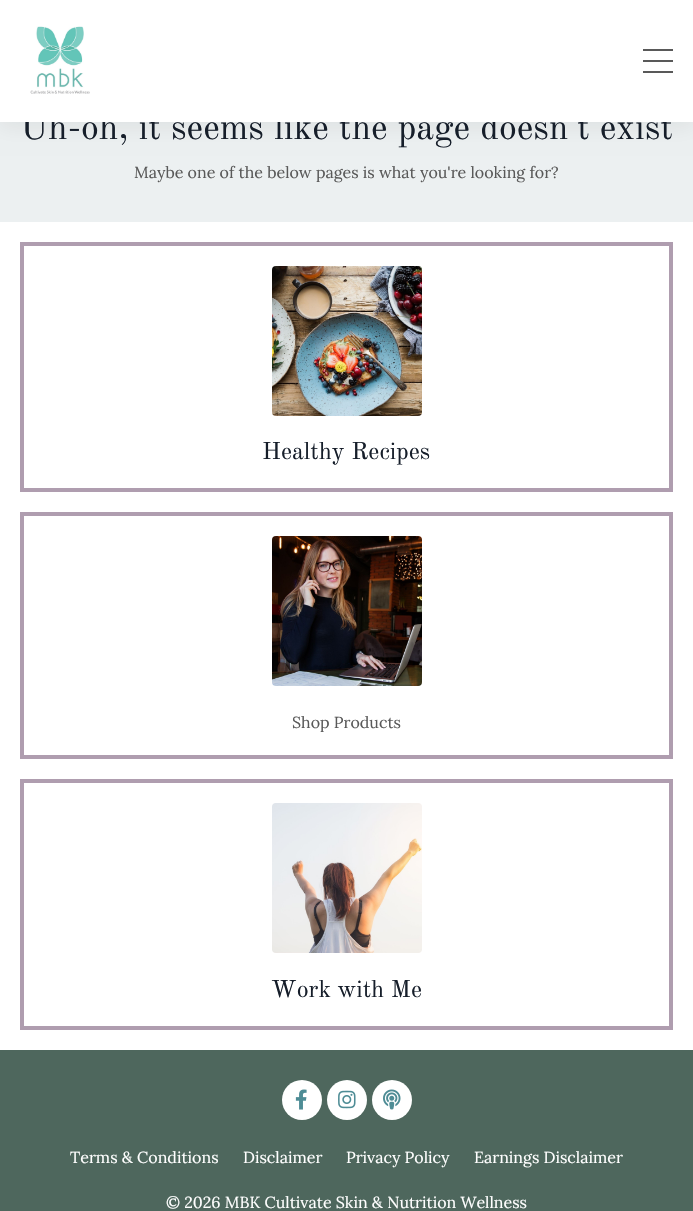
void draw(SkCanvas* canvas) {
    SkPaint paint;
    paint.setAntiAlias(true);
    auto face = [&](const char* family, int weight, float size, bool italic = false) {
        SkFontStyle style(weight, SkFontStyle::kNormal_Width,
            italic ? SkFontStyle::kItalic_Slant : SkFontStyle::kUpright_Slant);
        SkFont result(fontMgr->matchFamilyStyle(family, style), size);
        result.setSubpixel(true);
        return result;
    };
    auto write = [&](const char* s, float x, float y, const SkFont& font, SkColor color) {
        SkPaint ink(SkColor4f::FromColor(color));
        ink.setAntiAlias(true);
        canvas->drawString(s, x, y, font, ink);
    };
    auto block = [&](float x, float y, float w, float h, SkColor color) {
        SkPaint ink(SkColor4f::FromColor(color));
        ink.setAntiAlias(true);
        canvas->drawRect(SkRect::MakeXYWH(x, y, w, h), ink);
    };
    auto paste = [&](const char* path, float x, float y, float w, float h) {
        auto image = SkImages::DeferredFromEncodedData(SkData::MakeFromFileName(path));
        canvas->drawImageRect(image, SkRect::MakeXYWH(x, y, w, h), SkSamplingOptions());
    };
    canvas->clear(SkColorSetRGB(236, 240, 241));
    paint.setColor(SkColorSetARGB(18, 0, 0, 0));
    paint.setMaskFilter(SkMaskFilter::MakeBlur(kNormal_SkBlurStyle, 10));
    canvas->drawRect(SkRect::MakeXYWH(0, 4, 693, 122), paint);
    paint.setMaskFilter(nullptr);
    auto kFont1 = face("Old Standard TT", 400, 36);
    write("Uh-oh, it seems like the page doesn't exist", 20, 139, kFont1, SkColorSetRGB(22, 30, 42));
    block(0, 0, 693, 122, SK_ColorWHITE);
    paste("pic1.png", 30, 26, 60, 68);
    block(643, 49, 30, 2, SkColorSetRGB(89, 89, 89));
    block(643, 60, 30, 2, SkColorSetRGB(89, 89, 89));
    block(643, 71, 30, 2, SkColorSetRGB(89, 89, 89));
    auto kFont2 = face("Lora", 400, 16);
    write("Maybe one of the below pages is what you're looking for?", 134, 178, kFont2, SkColorSetRGB(89, 89, 89));
    block(0, 222, 693, 828, SK_ColorWHITE);
    paint.setStyle(SkPaint::kStroke_Style);
    paint.setStrokeWidth(4);
    paint.setColor(SkColorSetRGB(175, 157, 175));
    canvas->drawRect(SkRect::MakeXYWH(22, 244, 649, 246), paint);
    paste("pic2.png", 272, 266, 150, 150);
    auto kFont3 = face("Old Standard TT", 400, 24);
    write("Healthy Recipes", 262, 459, kFont3, SkColorSetRGB(22, 30, 42));
    canvas->drawRect(SkRect::MakeXYWH(22, 514, 649, 243), paint);
    paste("pic3.png", 272, 536, 150, 150);
    write("Shop Products", 292, 728, kFont2, SkColorSetRGB(89, 89, 89));
    canvas->drawRect(SkRect::MakeXYWH(22, 781, 649, 247), paint);
    paste("pic4.png", 272, 803, 150, 150);
    write("Work with Me", 271, 997, kFont3, SkColorSetRGB(22, 30, 42));
    block(0, 1050, 693, 161, SkColorSetRGB(78, 103, 93));
    paint.setStyle(SkPaint::kFill_Style);
    paint.setColor(SK_ColorWHITE);
    canvas->drawCircle(302, 1100, 20, paint);
    paste("pic5.png", 295, 1089, 12, 21);
    canvas->drawCircle(347, 1100, 20, paint);
    paste("pic6.png", 338, 1090, 18, 19);
    canvas->drawCircle(392, 1100, 20, paint);
    paste("pic7.png", 383, 1089, 18, 21);
    write("Terms & Conditions", 70, 1163, kFont2, SK_ColorWHITE);
    write("Disclaimer", 243, 1163, kFont2, SK_ColorWHITE);
    write("Privacy Policy", 346, 1163, kFont2, SK_ColorWHITE);
    write("Earnings Disclaimer", 474, 1163, kFont2, SK_ColorWHITE);
    write("© 2026 MBK Cultivate Skin & Nutrition Wellness", 166, 1208, kFont2, SK_ColorWHITE);
}
